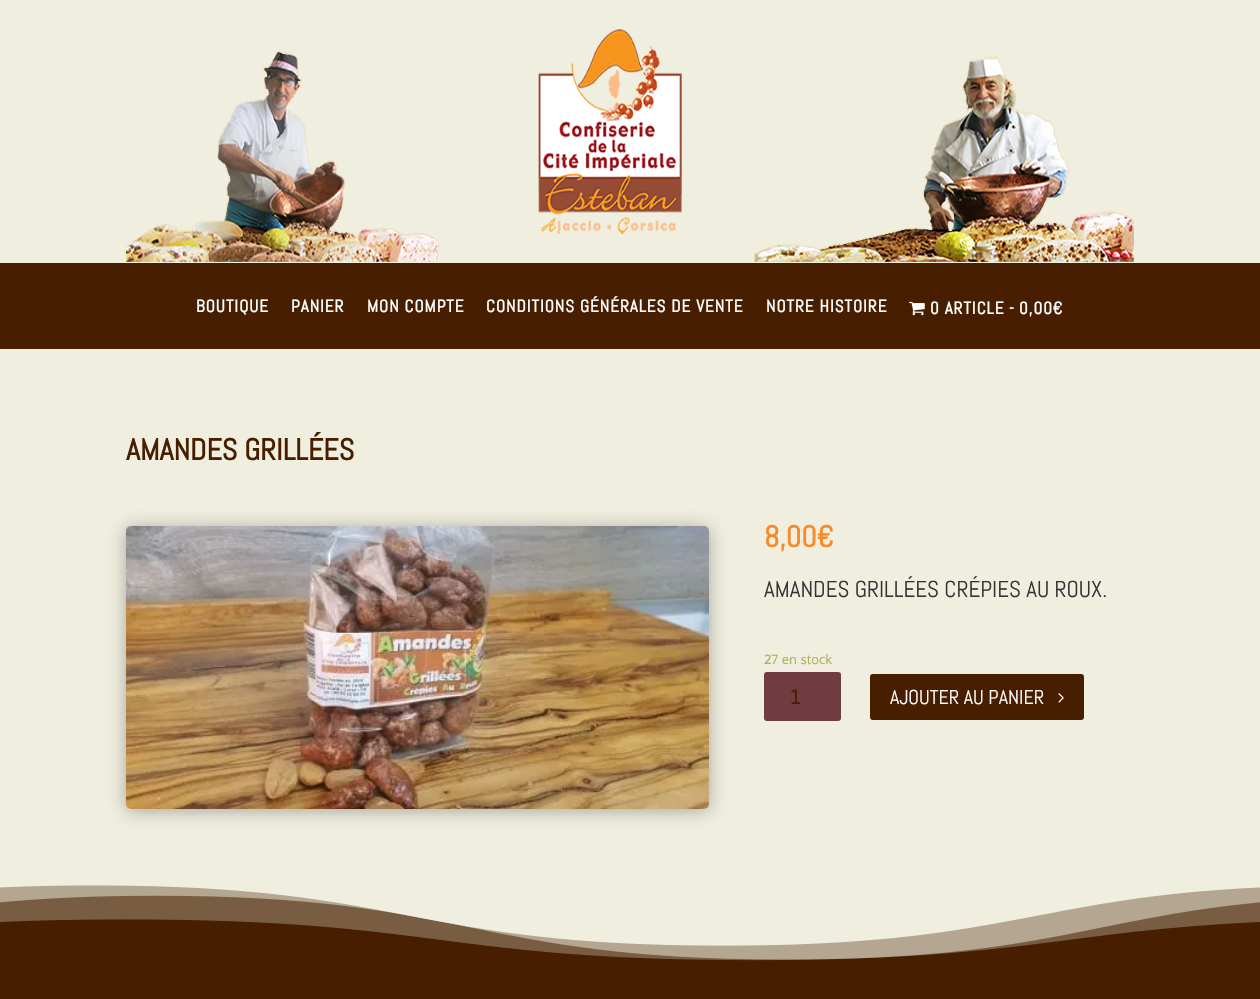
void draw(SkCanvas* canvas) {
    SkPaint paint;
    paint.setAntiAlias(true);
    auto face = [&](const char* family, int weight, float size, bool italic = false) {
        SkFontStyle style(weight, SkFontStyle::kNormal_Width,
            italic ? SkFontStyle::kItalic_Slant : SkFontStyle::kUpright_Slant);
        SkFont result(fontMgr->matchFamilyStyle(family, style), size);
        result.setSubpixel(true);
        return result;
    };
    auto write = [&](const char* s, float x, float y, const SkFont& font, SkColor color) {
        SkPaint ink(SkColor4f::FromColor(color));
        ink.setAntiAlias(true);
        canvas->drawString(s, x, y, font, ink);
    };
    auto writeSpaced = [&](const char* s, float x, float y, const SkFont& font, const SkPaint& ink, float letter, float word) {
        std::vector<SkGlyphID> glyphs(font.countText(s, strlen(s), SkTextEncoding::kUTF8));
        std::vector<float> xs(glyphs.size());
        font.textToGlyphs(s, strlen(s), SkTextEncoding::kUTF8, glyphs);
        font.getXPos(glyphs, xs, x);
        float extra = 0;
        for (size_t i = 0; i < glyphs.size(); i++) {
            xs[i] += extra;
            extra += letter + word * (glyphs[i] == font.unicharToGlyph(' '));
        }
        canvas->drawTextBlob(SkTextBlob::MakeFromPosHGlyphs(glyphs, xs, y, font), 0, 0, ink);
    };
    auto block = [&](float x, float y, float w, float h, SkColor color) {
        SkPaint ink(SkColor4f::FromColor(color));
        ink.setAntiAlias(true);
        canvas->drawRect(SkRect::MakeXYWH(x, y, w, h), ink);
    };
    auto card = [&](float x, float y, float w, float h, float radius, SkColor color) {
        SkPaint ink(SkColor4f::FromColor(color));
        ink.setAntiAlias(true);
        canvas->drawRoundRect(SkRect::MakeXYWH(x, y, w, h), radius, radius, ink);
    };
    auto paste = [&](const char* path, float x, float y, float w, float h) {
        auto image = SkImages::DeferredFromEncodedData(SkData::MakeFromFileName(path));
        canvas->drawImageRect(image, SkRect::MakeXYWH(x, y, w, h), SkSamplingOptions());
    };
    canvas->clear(SkColorSetRGB(239, 238, 223));
    paste("pic1.png", 126, 29, 1008, 233);
    block(0, 263, 1260, 86, SkColorSetRGB(71, 31, 0));
    auto kFont1 = face("Abel", 700, 17);
    paint.setColor(SK_ColorWHITE);
    writeSpaced("BOUTIQUE", 196, 312, kFont1, paint, 1, 0);
    writeSpaced("PANIER", 291, 312, kFont1, paint, 1, 0);
    writeSpaced("MON COMPTE", 367, 312, kFont1, paint, 1, 0);
    writeSpaced("CONDITIONS GÉNÉRALES DE VENTE", 486, 312, kFont1, paint, 1, 0);
    writeSpaced("NOTRE HISTOIRE", 766, 312, kFont1, paint, 1, 0);
    paste("pic2.png", 909, 301, 16, 15);
    writeSpaced("0 ARTICLE", 930, 314, kFont1, paint, 1, 0);
    writeSpaced("-", 1009, 314, kFont1, paint, 1, 0);
    writeSpaced("0,00€", 1019, 314, kFont1, paint, 1, 0);
    auto kFont2 = face("Abel", 700, 30);
    write("AMANDES GRILLÉES", 126, 460, kFont2, SkColorSetRGB(71, 31, 0));
    paint.setColor(SkColorSetARGB(77, 0, 0, 0));
    paint.setMaskFilter(SkMaskFilter::MakeBlur(kNormal_SkBlurStyle, 9));
    canvas->drawRoundRect(SkRect::MakeXYWH(126, 528, 583, 283), 5, 5, paint);
    paint.setMaskFilter(nullptr);
    paste("pic3.png", 126, 526, 583, 283);
    write("8,00€", 764, 547, kFont2, SkColorSetRGB(247, 138, 43));
    auto kFont3 = face("Abel", 400, 23);
    write("AMANDES GRILLÉES CRÉPIES AU ROUX.", 764, 597, kFont3, SkColorSetRGB(51, 51, 51));
    auto kFont4 = face("Noto Sans", 500, 13);
    write("2", 764, 664, kFont4, SkColorSetRGB(179, 175, 84));
    auto kFont5 = face("Open Sans", 400, 13);
    write("7 en stock", 771, 664, kFont5, SkColorSetRGB(179, 175, 84));
    card(764, 672, 77, 49, 3, SkColorSetRGB(113, 59, 65));
    auto kFont6 = face("Abel", 700, 20);
    write("1", 790, 704, kFont6, SkColorSetRGB(71, 31, 0));
    card(870, 674, 214, 46, 3, SkColorSetRGB(71, 31, 0));
    auto kFont7 = face("Abel", 400, 20);
    write("AJOUTER AU PANIER", 890, 704, kFont7, SK_ColorWHITE);
    paste("pic4.png", 1058, 693, 6, 10);
    block(0, 885, 1260, 114, SkColorSetRGB(71, 31, 0));
    paste("pic5.png", 0, 885, 1260, 76);
}
